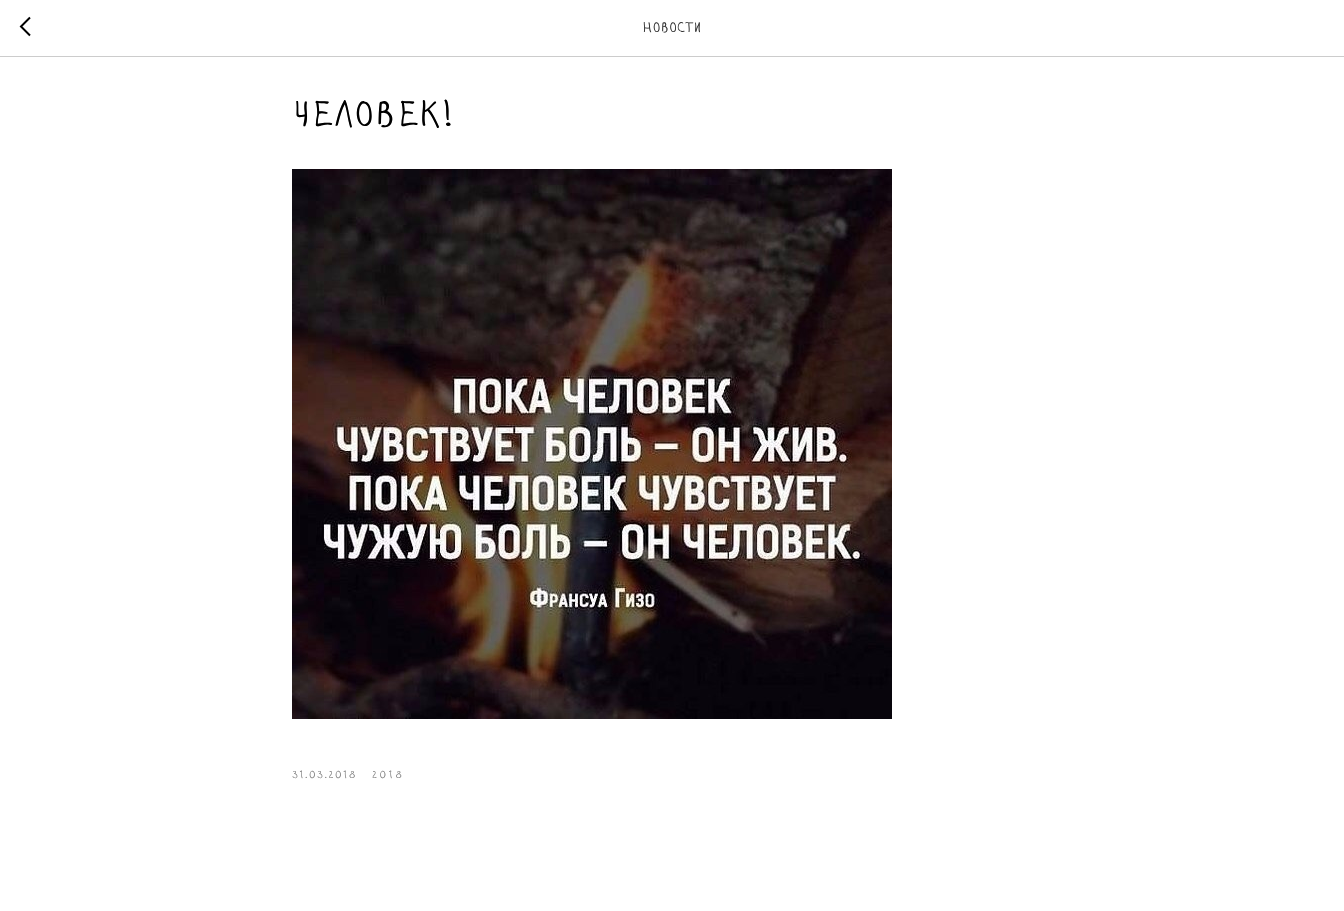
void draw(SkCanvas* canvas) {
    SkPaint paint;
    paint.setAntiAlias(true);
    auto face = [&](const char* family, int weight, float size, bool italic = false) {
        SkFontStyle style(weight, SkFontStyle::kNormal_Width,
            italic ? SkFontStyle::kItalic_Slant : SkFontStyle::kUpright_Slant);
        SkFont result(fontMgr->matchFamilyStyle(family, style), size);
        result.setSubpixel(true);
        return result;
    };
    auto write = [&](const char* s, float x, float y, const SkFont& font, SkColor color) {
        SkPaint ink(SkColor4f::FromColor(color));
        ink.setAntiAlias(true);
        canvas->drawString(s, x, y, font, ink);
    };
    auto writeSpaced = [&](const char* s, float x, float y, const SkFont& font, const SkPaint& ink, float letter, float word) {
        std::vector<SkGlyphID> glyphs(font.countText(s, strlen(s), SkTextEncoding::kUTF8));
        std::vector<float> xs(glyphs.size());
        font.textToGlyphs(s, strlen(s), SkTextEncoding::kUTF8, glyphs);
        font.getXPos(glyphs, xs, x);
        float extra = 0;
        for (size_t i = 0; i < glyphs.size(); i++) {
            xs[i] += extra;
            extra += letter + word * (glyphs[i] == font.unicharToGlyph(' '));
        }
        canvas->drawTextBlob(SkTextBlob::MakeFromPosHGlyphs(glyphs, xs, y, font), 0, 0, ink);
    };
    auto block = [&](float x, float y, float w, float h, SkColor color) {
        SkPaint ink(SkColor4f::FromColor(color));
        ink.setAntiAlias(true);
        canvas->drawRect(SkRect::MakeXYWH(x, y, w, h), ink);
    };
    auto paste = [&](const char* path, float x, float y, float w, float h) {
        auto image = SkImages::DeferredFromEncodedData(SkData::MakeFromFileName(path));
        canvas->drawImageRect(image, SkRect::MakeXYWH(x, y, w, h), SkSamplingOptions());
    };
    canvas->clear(SK_ColorWHITE);
    block(0, 56, 1344, 1, SkColorSetRGB(204, 204, 204));
    paint.setStyle(SkPaint::kStroke_Style);
    paint.setStrokeWidth(2);
    paint.setColor(SK_ColorBLACK);
    canvas->drawPath(SkPathBuilder().moveTo(30, 35.5f).lineTo(21, 26.5f).lineTo(30, 17.5f).detach(), paint);
    auto kFont1 = face("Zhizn", 400, 14);
    write("Новости", 642, 32, kFont1, SkColorSetRGB(51, 51, 51));
    auto kFont2 = face("Zhizn", 400, 36);
    write("Человек!", 292, 126, kFont2, SK_ColorBLACK);
    paste("pic1.png", 292, 169, 600, 550);
    auto kFont3 = face("Zhizn", 400, 10);
    paint.setStyle(SkPaint::kFill_Style);
    paint.setColor(SkColorSetRGB(128, 128, 128));
    writeSpaced("31.03.2018", 292, 778, kFont3, paint, 1.5f, 0);
    writeSpaced("2018", 372, 778, kFont3, paint, 2.5f, 0);
}
